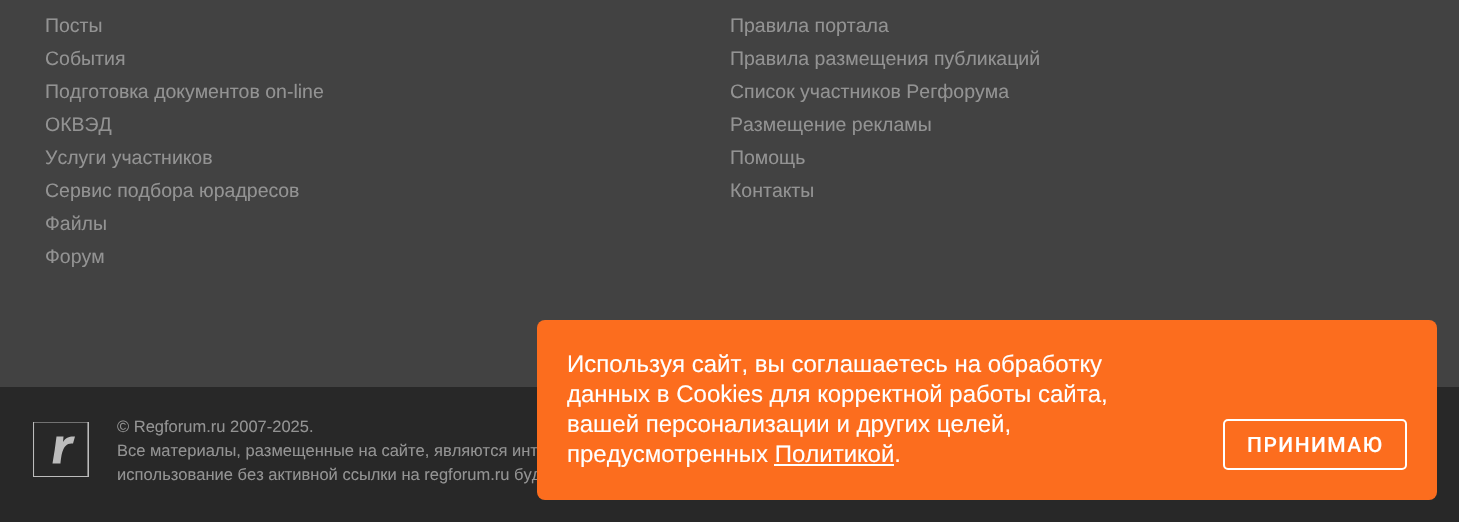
void draw(SkCanvas* canvas) {
    SkPaint paint;
    paint.setAntiAlias(true);
    auto face = [&](const char* family, int weight, float size, bool italic = false) {
        SkFontStyle style(weight, SkFontStyle::kNormal_Width,
            italic ? SkFontStyle::kItalic_Slant : SkFontStyle::kUpright_Slant);
        SkFont result(fontMgr->matchFamilyStyle(family, style), size);
        result.setSubpixel(true);
        return result;
    };
    auto write = [&](const char* s, float x, float y, const SkFont& font, SkColor color) {
        SkPaint ink(SkColor4f::FromColor(color));
        ink.setAntiAlias(true);
        canvas->drawString(s, x, y, font, ink);
    };
    auto writeSpaced = [&](const char* s, float x, float y, const SkFont& font, const SkPaint& ink, float letter, float word) {
        std::vector<SkGlyphID> glyphs(font.countText(s, strlen(s), SkTextEncoding::kUTF8));
        std::vector<float> xs(glyphs.size());
        font.textToGlyphs(s, strlen(s), SkTextEncoding::kUTF8, glyphs);
        font.getXPos(glyphs, xs, x);
        float extra = 0;
        for (size_t i = 0; i < glyphs.size(); i++) {
            xs[i] += extra;
            extra += letter + word * (glyphs[i] == font.unicharToGlyph(' '));
        }
        canvas->drawTextBlob(SkTextBlob::MakeFromPosHGlyphs(glyphs, xs, y, font), 0, 0, ink);
    };
    auto block = [&](float x, float y, float w, float h, SkColor color) {
        SkPaint ink(SkColor4f::FromColor(color));
        ink.setAntiAlias(true);
        canvas->drawRect(SkRect::MakeXYWH(x, y, w, h), ink);
    };
    auto card = [&](float x, float y, float w, float h, float radius, SkColor color) {
        SkPaint ink(SkColor4f::FromColor(color));
        ink.setAntiAlias(true);
        canvas->drawRoundRect(SkRect::MakeXYWH(x, y, w, h), radius, radius, ink);
    };
    canvas->clear(SkColorSetRGB(66, 66, 66));
    auto kFont1 = face("Liberation Sans", 400, 19.5f);
    write("Посты", 45, 32, kFont1, SkColorSetRGB(147, 147, 147));
    write("События", 45, 65, kFont1, SkColorSetRGB(147, 147, 147));
    write("Подготовка документов on-line", 45, 98, kFont1, SkColorSetRGB(147, 147, 147));
    write("ОКВЭД", 45, 131, kFont1, SkColorSetRGB(147, 147, 147));
    write("Услуги участников", 45, 164, kFont1, SkColorSetRGB(147, 147, 147));
    write("Сервис подбора юрадресов", 45, 197, kFont1, SkColorSetRGB(147, 147, 147));
    write("Файлы", 45, 230, kFont1, SkColorSetRGB(147, 147, 147));
    write("Форум", 45, 263, kFont1, SkColorSetRGB(147, 147, 147));
    write("Правила портала", 730, 32, kFont1, SkColorSetRGB(147, 147, 147));
    write("Правила размещения публикаций", 730, 65, kFont1, SkColorSetRGB(147, 147, 147));
    write("Список участников Регфорума", 730, 98, kFont1, SkColorSetRGB(147, 147, 147));
    write("Размещение рекламы", 730, 131, kFont1, SkColorSetRGB(147, 147, 147));
    write("Помощь", 730, 164, kFont1, SkColorSetRGB(147, 147, 147));
    write("Контакты", 730, 197, kFont1, SkColorSetRGB(147, 147, 147));
    block(0, 387, 1459, 135, SkColorSetRGB(40, 40, 40));
    paint.setColor(SkColorSetRGB(188, 188, 188));
    canvas->drawPath(SkPathBuilder(SkPathFillType::kEvenOdd).moveTo(73, 443.5f).lineTo(75, 436.5f).cubicTo(70, 436, 65.5f, 437.5f, 63, 442).lineTo(63.5f, 436.5f).lineTo(56.5f, 436.5f).cubicTo(55.5f, 445.5f, 54, 454.5f, 52.5f, 463.5f).lineTo(60.5f, 463.5f).cubicTo(61.5f, 456, 62, 442, 73, 443.5f).detach(), paint);
    canvas->save();
    canvas->clipRect(SkRect::MakeXYWH(33, 422, 56, 55));
    paint.setStyle(SkPaint::kStroke_Style);
    paint.setStrokeWidth(2.1f);
    canvas->drawPath(SkPathBuilder().moveTo(33, 421.5f).lineTo(88.5f, 421.5f).lineTo(88.5f, 477).lineTo(33, 477).close().detach(), paint);
    canvas->restore();
    auto kFont2 = face("Liberation Sans", 400, 16.5f);
    write("© Regforum.ru 2007-2025.", 117, 432, kFont2, SkColorSetRGB(147, 147, 147));
    write("Все материалы, размещенные на сайте, являются инт", 117, 456, kFont2, SkColorSetRGB(147, 147, 147));
    write("использование без активной ссылки на regforum.ru буд", 117, 480, kFont2, SkColorSetRGB(147, 147, 147));
    card(537, 320, 900, 180, 8, SkColorSetRGB(252, 109, 30));
    auto kFont3 = face("Liberation Sans", 400, 24);
    write("Используя сайт, вы соглашаетесь на обработку", 567, 372, kFont3, SK_ColorWHITE);
    write("данных в Cookies для корректной работы сайта,", 567, 402, kFont3, SK_ColorWHITE);
    write("вашей персонализации и других целей,", 567, 432, kFont3, SK_ColorWHITE);
    write("предусмотренных Политикой.", 567, 462, kFont3, SK_ColorWHITE);
    block(774, 464, 120, 2, SK_ColorWHITE);
    paint.setStrokeWidth(2);
    paint.setColor(SK_ColorWHITE);
    canvas->drawRoundRect(SkRect::MakeXYWH(1224, 420, 182, 49), 4, 4, paint);
    auto kFont4 = face("Roboto", 500, 21);
    paint.setStyle(SkPaint::kFill_Style);
    writeSpaced("ПРИНИМАЮ", 1247, 452, kFont4, paint, 1.5f, 0);
}
